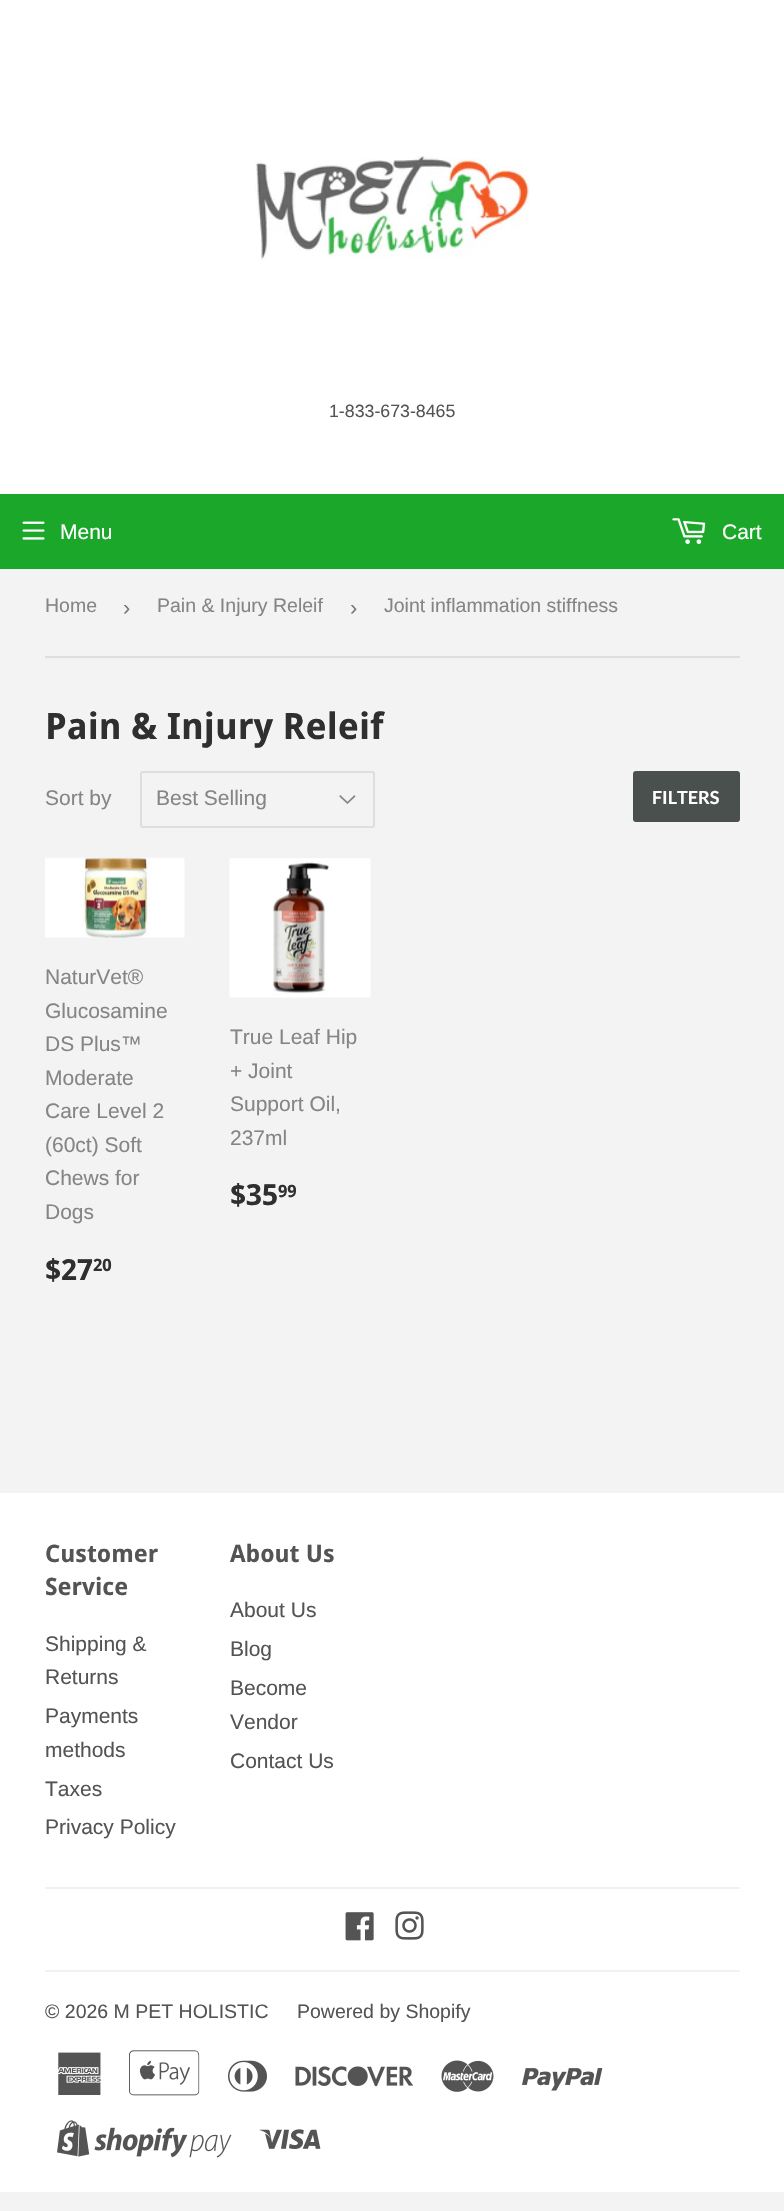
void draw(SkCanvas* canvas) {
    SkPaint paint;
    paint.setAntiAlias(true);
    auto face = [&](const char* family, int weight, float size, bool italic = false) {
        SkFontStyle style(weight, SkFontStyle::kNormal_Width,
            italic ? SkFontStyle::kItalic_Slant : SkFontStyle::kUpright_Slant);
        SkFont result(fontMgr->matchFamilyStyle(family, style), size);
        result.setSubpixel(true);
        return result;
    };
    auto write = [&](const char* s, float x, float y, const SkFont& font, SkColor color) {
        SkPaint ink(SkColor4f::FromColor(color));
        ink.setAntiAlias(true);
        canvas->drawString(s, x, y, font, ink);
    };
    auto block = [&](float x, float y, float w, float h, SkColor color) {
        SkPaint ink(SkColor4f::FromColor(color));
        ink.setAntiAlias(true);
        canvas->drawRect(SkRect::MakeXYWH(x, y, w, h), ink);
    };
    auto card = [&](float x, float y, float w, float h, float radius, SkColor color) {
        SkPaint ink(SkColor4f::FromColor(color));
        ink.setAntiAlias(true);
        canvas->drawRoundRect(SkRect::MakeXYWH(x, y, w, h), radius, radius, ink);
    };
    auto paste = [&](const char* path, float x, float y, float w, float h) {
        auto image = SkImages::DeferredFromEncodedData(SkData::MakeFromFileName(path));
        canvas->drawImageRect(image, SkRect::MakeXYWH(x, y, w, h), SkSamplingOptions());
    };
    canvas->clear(SkColorSetRGB(243, 243, 243));
    block(0, 0, 784, 494, SK_ColorWHITE);
    paste("pic1.png", 255, 154, 275, 106);
    auto kFont1 = face("Liberation Sans", 400, 17.75f);
    write("1-833-673-8465", 329, 417, kFont1, SkColorSetRGB(84, 84, 84));
    block(0, 494, 784, 75, SkColorSetRGB(26, 167, 42));
    paste("pic2.png", 22, 521, 23, 19);
    auto kFont2 = face("Liberation Sans", 400, 21);
    write("Menu", 60, 539, kFont2, SK_ColorWHITE);
    paste("pic3.png", 672, 518, 34, 26);
    write("Cart", 722, 539, kFont2, SK_ColorWHITE);
    block(45, 656, 695, 2, SkColorSetRGB(222, 222, 222));
    auto kFont3 = face("Liberation Sans", 400, 19.5f);
    write("Home", 45, 612, kFont3, SkColorSetRGB(133, 133, 133));
    auto kFont4 = face("Liberation Sans", 400, 22);
    write("›", 123, 615, kFont4, SkColorSetRGB(118, 118, 118));
    write("Pain & Injury Releif", 157, 612, kFont3, SkColorSetRGB(133, 133, 133));
    write("›", 350, 615, kFont4, SkColorSetRGB(118, 118, 118));
    write("Joint inflammation stiffness", 384, 612, kFont3, SkColorSetRGB(133, 133, 133));
    auto kFont5 = face("Droid Sans", 700, 36.4f);
    write("Pain & Injury Releif", 45, 739, kFont5, SkColorSetRGB(47, 47, 47));
    write("Sort by", 45, 805, kFont2, SkColorSetRGB(133, 133, 133));
    paste("pic4.png", 339, 795, 17, 9);
    paint.setStyle(SkPaint::kStroke_Style);
    paint.setStrokeWidth(2);
    paint.setColor(SkColorSetRGB(222, 222, 222));
    canvas->drawRoundRect(SkRect::MakeXYWH(141, 772, 233, 55), 2, 2, paint);
    write("Best Selling", 156, 805, kFont2, SkColorSetRGB(133, 133, 133));
    card(633, 771, 107, 51, 3, SkColorSetRGB(74, 80, 77));
    auto kFont6 = face("Lato", 700, 18);
    write("FILTERS", 652, 804, kFont6, SK_ColorWHITE);
    paste("pic5.png", 45, 857, 140, 81);
    write("NaturVet®", 45, 984, kFont2, SkColorSetRGB(133, 133, 133));
    write("Glucosamine", 45, 1018, kFont2, SkColorSetRGB(133, 133, 133));
    write("DS Plus™", 45, 1051, kFont2, SkColorSetRGB(133, 133, 133));
    write("Moderate", 45, 1085, kFont2, SkColorSetRGB(133, 133, 133));
    write("Care Level 2", 45, 1118, kFont2, SkColorSetRGB(133, 133, 133));
    write("(60ct) Soft", 45, 1152, kFont2, SkColorSetRGB(133, 133, 133));
    write("Chews for", 45, 1185, kFont2, SkColorSetRGB(133, 133, 133));
    write("Dogs", 45, 1219, kFont2, SkColorSetRGB(133, 133, 133));
    auto kFont7 = face("Droid Sans", 700, 29);
    write("$27", 45, 1280, kFont7, SkColorSetRGB(47, 47, 47));
    auto kFont8 = face("Droid Sans", 700, 17);
    write("20", 93, 1271, kFont8, SkColorSetRGB(47, 47, 47));
    paste("pic6.png", 229, 858, 142, 140);
    write("True Leaf Hip", 230, 1044, kFont2, SkColorSetRGB(133, 133, 133));
    write("+ Joint", 230, 1078, kFont2, SkColorSetRGB(133, 133, 133));
    write("Support Oil,", 230, 1111, kFont2, SkColorSetRGB(133, 133, 133));
    write("237ml", 230, 1145, kFont2, SkColorSetRGB(133, 133, 133));
    write("$35", 230, 1205, kFont7, SkColorSetRGB(47, 47, 47));
    write("99", 278, 1197, kFont8, SkColorSetRGB(47, 47, 47));
    block(0, 1493, 784, 699, SK_ColorWHITE);
    auto kFont9 = face("Droid Sans", 700, 24);
    write("Customer", 45, 1562, kFont9, SkColorSetRGB(84, 84, 84));
    write("Service", 45, 1595, kFont9, SkColorSetRGB(84, 84, 84));
    write("Shipping &", 45, 1651, kFont2, SkColorSetRGB(84, 84, 84));
    write("Returns", 45, 1684, kFont2, SkColorSetRGB(84, 84, 84));
    write("Payments", 45, 1723, kFont2, SkColorSetRGB(84, 84, 84));
    write("methods", 45, 1757, kFont2, SkColorSetRGB(84, 84, 84));
    write("Taxes", 45, 1796, kFont2, SkColorSetRGB(84, 84, 84));
    write("Privacy Policy", 45, 1834, kFont2, SkColorSetRGB(84, 84, 84));
    write("About Us", 230, 1562, kFont9, SkColorSetRGB(84, 84, 84));
    write("About Us", 230, 1617, kFont2, SkColorSetRGB(84, 84, 84));
    write("Blog", 230, 1656, kFont2, SkColorSetRGB(84, 84, 84));
    write("Become", 230, 1695, kFont2, SkColorSetRGB(84, 84, 84));
    write("Vendor", 230, 1729, kFont2, SkColorSetRGB(84, 84, 84));
    write("Contact Us", 230, 1768, kFont2, SkColorSetRGB(84, 84, 84));
    block(45, 1887, 695, 2, SkColorSetRGB(242, 242, 242));
    paste("pic7.png", 345, 1912, 29, 29);
    paste("pic8.png", 395, 1911, 29, 29);
    block(45, 1970, 695, 2, SkColorSetRGB(242, 242, 242));
    write("© 2026 M PET HOLISTIC", 45, 2018, kFont3, SkColorSetRGB(84, 84, 84));
    write("Powered by Shopify", 297, 2018, kFont3, SkColorSetRGB(84, 84, 84));
    paste("pic9.png", 58, 2052, 43, 43);
    paste("pic10.png", 129, 2050, 71, 46);
    paste("pic11.png", 228, 2060, 39, 32);
    paste("pic12.png", 295, 2066, 119, 21);
    paste("pic13.png", 441, 2060, 53, 32);
    paste("pic14.png", 522, 2068, 81, 23);
    paste("pic15.png", 57, 2120, 175, 38);
    paste("pic16.png", 259, 2129, 62, 20);
}
